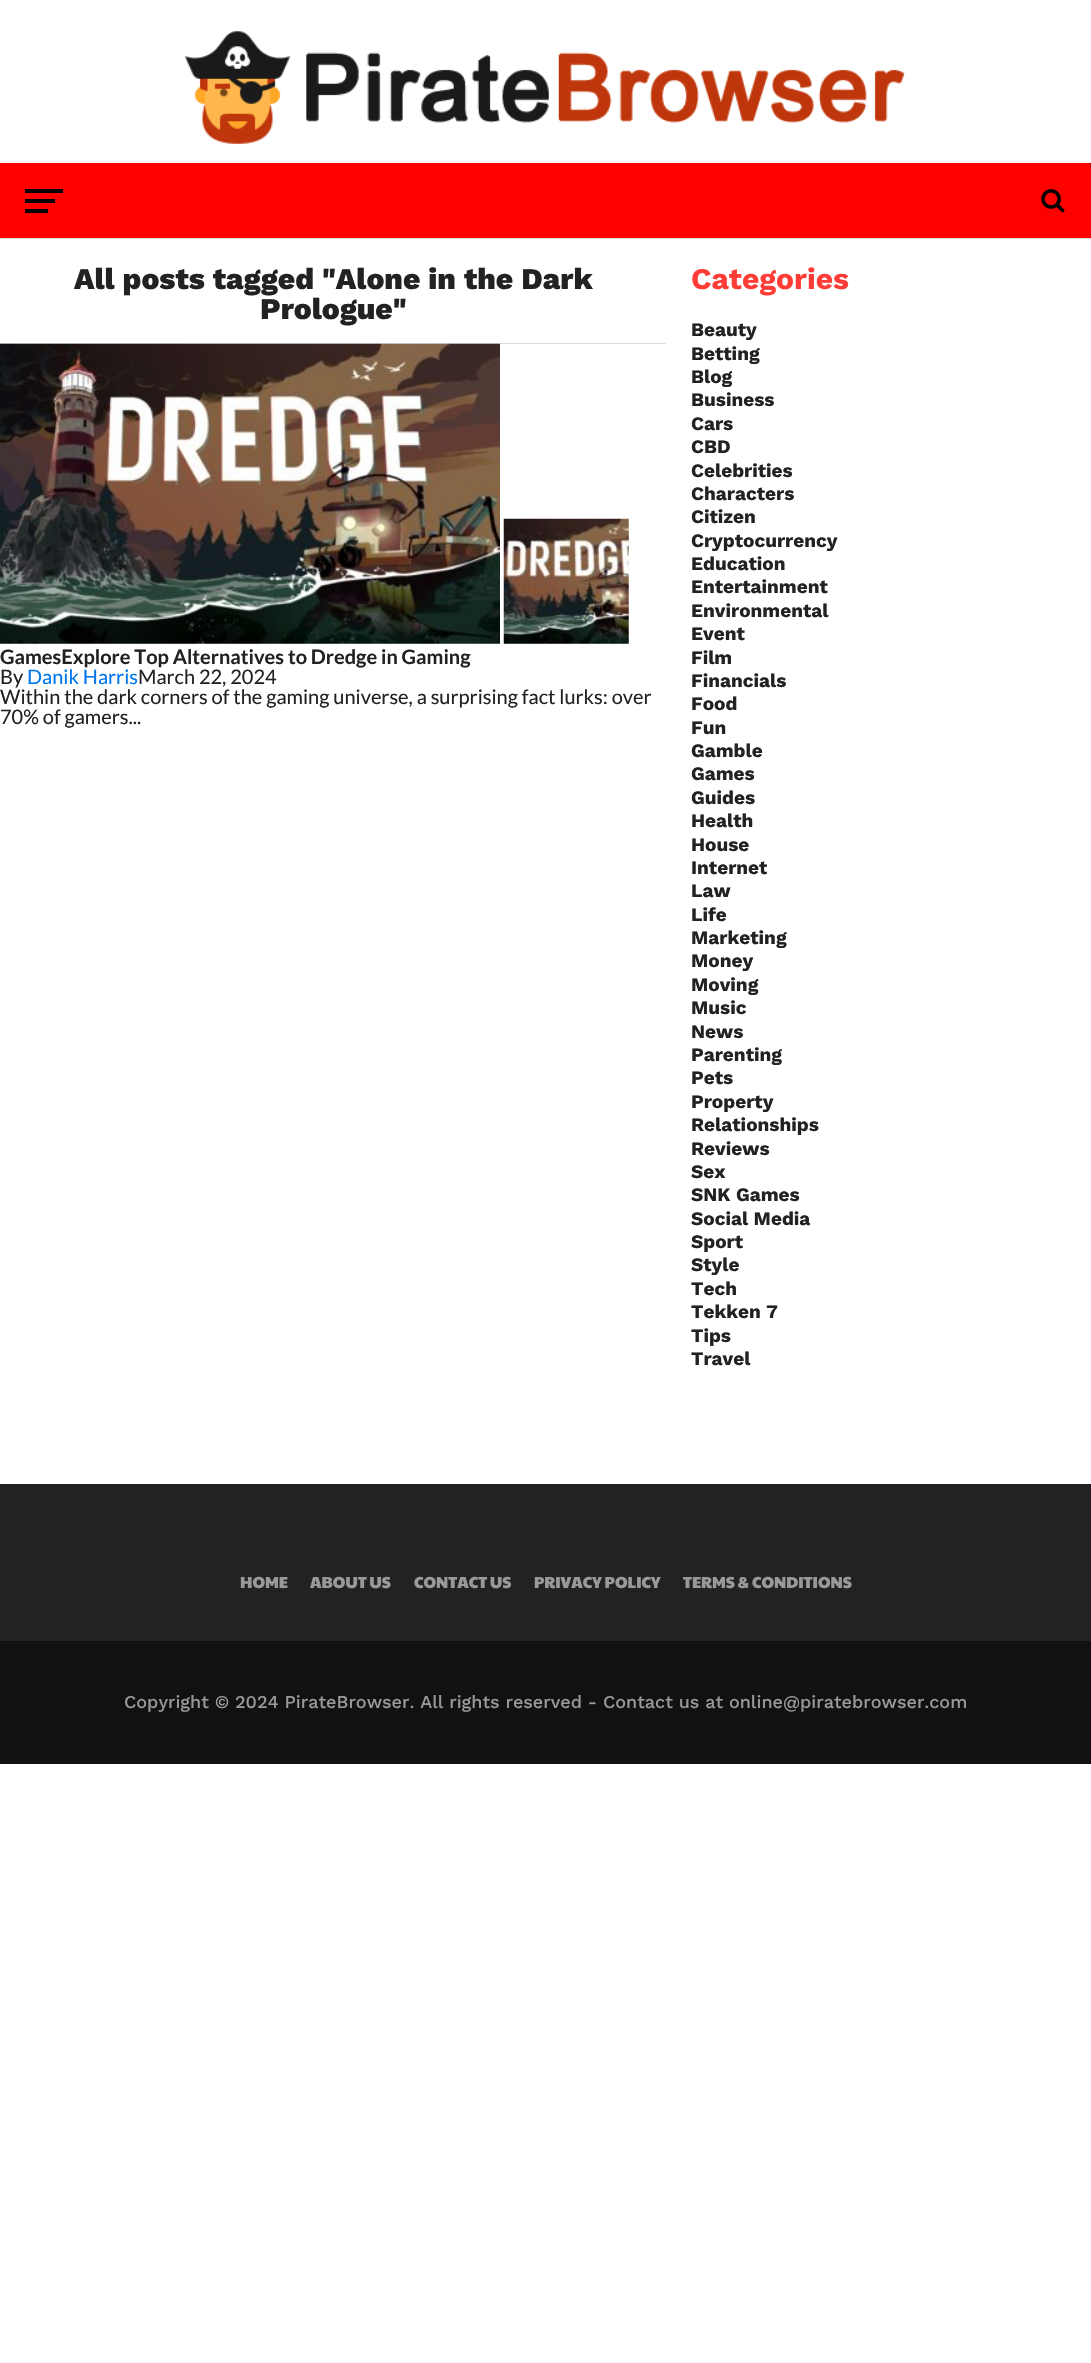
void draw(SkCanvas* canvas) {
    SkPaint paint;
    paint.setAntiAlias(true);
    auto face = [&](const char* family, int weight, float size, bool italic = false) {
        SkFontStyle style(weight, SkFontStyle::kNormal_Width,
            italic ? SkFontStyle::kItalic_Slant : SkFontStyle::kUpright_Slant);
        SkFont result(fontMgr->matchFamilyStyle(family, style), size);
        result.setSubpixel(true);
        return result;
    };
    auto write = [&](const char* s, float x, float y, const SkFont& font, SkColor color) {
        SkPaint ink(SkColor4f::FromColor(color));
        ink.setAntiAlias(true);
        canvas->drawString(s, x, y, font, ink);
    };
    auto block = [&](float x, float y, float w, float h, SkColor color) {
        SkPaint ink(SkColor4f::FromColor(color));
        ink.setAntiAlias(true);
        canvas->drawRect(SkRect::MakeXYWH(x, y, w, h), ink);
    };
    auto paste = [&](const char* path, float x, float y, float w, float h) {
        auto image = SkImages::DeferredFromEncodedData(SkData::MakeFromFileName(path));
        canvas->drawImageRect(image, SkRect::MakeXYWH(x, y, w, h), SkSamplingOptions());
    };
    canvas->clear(SK_ColorWHITE);
    paste("pic1.png", 184, 31, 721, 113);
    block(0, 163, 1091, 75, SkColorSetRGB(255, 0, 0));
    block(25, 189, 38, 4, SK_ColorBLACK);
    block(25, 199, 30, 4, SK_ColorBLACK);
    block(25, 209, 23, 4, SK_ColorBLACK);
    paste("pic2.png", 1041, 189, 24, 24);
    block(0, 238, 1091, 1, SkColorSetRGB(221, 221, 221));
    auto kFont1 = face("Work Sans", 800, 30);
    write("All posts tagged \"Alone in the Dark", 74, 289, kFont1, SkColorSetRGB(34, 34, 34));
    write("Prologue\"", 260, 319, kFont1, SkColorSetRGB(34, 34, 34));
    block(0, 343, 666, 1, SkColorSetRGB(221, 221, 221));
    paste("pic3.png", 0, 343, 500, 301);
    paste("pic4.png", 503, 518, 126, 126);
    auto kFont2 = face("Lato", 700, 20);
    write("GamesExplore Top Alternatives to Dredge in Gaming", 0, 664, kFont2, SkColorSetRGB(34, 34, 34));
    auto kFont3 = face("Lato", 400, 20);
    write("By", 0, 684, kFont3, SkColorSetRGB(34, 34, 34));
    write("Danik Harris", 27, 684, kFont3, SkColorSetRGB(0, 119, 238));
    write("March 22, 2024", 138, 684, kFont3, SkColorSetRGB(34, 34, 34));
    write("Within the dark corners of the gaming universe, a surprising fact lurks: over", 0, 704, kFont3, SkColorSetRGB(34, 34, 34));
    write("70% of gamers...", 0, 724, kFont3, SkColorSetRGB(34, 34, 34));
    auto kFont4 = face("Work Sans", 700, 30);
    write("Categories", 691, 289, kFont4, SkColorSetRGB(255, 60, 54));
    auto kFont5 = face("Work Sans", 700, 19);
    write("Beauty", 691, 336, kFont5, SkColorSetRGB(34, 34, 34));
    write("Betting", 691, 360, kFont5, SkColorSetRGB(34, 34, 34));
    write("Blog", 691, 383, kFont5, SkColorSetRGB(34, 34, 34));
    write("Business", 691, 406, kFont5, SkColorSetRGB(34, 34, 34));
    write("Cars", 691, 430, kFont5, SkColorSetRGB(34, 34, 34));
    write("CBD", 691, 453, kFont5, SkColorSetRGB(34, 34, 34));
    write("Celebrities", 691, 477, kFont5, SkColorSetRGB(34, 34, 34));
    write("Characters", 691, 500, kFont5, SkColorSetRGB(34, 34, 34));
    write("Citizen", 691, 523, kFont5, SkColorSetRGB(34, 34, 34));
    write("Cryptocurrency", 691, 547, kFont5, SkColorSetRGB(34, 34, 34));
    write("Education", 691, 570, kFont5, SkColorSetRGB(34, 34, 34));
    write("Entertainment", 691, 593, kFont5, SkColorSetRGB(34, 34, 34));
    write("Environmental", 691, 617, kFont5, SkColorSetRGB(34, 34, 34));
    write("Event", 691, 640, kFont5, SkColorSetRGB(34, 34, 34));
    write("Film", 691, 664, kFont5, SkColorSetRGB(34, 34, 34));
    write("Financials", 691, 687, kFont5, SkColorSetRGB(34, 34, 34));
    write("Food", 691, 710, kFont5, SkColorSetRGB(34, 34, 34));
    write("Fun", 691, 734, kFont5, SkColorSetRGB(34, 34, 34));
    write("Gamble", 691, 757, kFont5, SkColorSetRGB(34, 34, 34));
    write("Games", 691, 780, kFont5, SkColorSetRGB(34, 34, 34));
    write("Guides", 691, 804, kFont5, SkColorSetRGB(34, 34, 34));
    write("Health", 691, 827, kFont5, SkColorSetRGB(34, 34, 34));
    write("House", 691, 851, kFont5, SkColorSetRGB(34, 34, 34));
    write("Internet", 691, 874, kFont5, SkColorSetRGB(34, 34, 34));
    write("Law", 691, 897, kFont5, SkColorSetRGB(34, 34, 34));
    write("Life", 691, 921, kFont5, SkColorSetRGB(34, 34, 34));
    write("Marketing", 691, 944, kFont5, SkColorSetRGB(34, 34, 34));
    write("Money", 691, 967, kFont5, SkColorSetRGB(34, 34, 34));
    write("Moving", 691, 991, kFont5, SkColorSetRGB(34, 34, 34));
    write("Music", 691, 1014, kFont5, SkColorSetRGB(34, 34, 34));
    write("News", 691, 1038, kFont5, SkColorSetRGB(34, 34, 34));
    write("Parenting", 691, 1061, kFont5, SkColorSetRGB(34, 34, 34));
    write("Pets", 691, 1084, kFont5, SkColorSetRGB(34, 34, 34));
    write("Property", 691, 1108, kFont5, SkColorSetRGB(34, 34, 34));
    write("Relationships", 691, 1131, kFont5, SkColorSetRGB(34, 34, 34));
    write("Reviews", 691, 1155, kFont5, SkColorSetRGB(34, 34, 34));
    write("Sex", 691, 1178, kFont5, SkColorSetRGB(34, 34, 34));
    write("SNK Games", 691, 1201, kFont5, SkColorSetRGB(34, 34, 34));
    write("Social Media", 691, 1225, kFont5, SkColorSetRGB(34, 34, 34));
    write("Sport", 691, 1248, kFont5, SkColorSetRGB(34, 34, 34));
    write("Style", 691, 1271, kFont5, SkColorSetRGB(34, 34, 34));
    write("Tech", 691, 1295, kFont5, SkColorSetRGB(34, 34, 34));
    write("Tekken 7", 691, 1318, kFont5, SkColorSetRGB(34, 34, 34));
    write("Tips", 691, 1342, kFont5, SkColorSetRGB(34, 34, 34));
    write("Travel", 691, 1365, kFont5, SkColorSetRGB(34, 34, 34));
    block(0, 1484, 1091, 157, SkColorSetRGB(34, 34, 34));
    auto kFont6 = face("Paytone One", 400, 16);
    write("HOME", 240, 1588, kFont6, SkColorSetRGB(153, 153, 153));
    write("ABOUT US", 310, 1588, kFont6, SkColorSetRGB(153, 153, 153));
    write("CONTACT US", 414, 1588, kFont6, SkColorSetRGB(153, 153, 153));
    write("PRIVACY POLICY", 534, 1588, kFont6, SkColorSetRGB(153, 153, 153));
    write("TERMS & CONDITIONS", 683, 1588, kFont6, SkColorSetRGB(153, 153, 153));
    block(0, 1641, 1091, 123, SkColorSetRGB(17, 17, 17));
    auto kFont7 = face("Work Sans", 500, 18);
    write("Copyright © 2024 PirateBrowser. All rights reserved - Contact us at online@piratebrowser.com", 124, 1708, kFont7, SkColorSetRGB(153, 153, 153));
}
